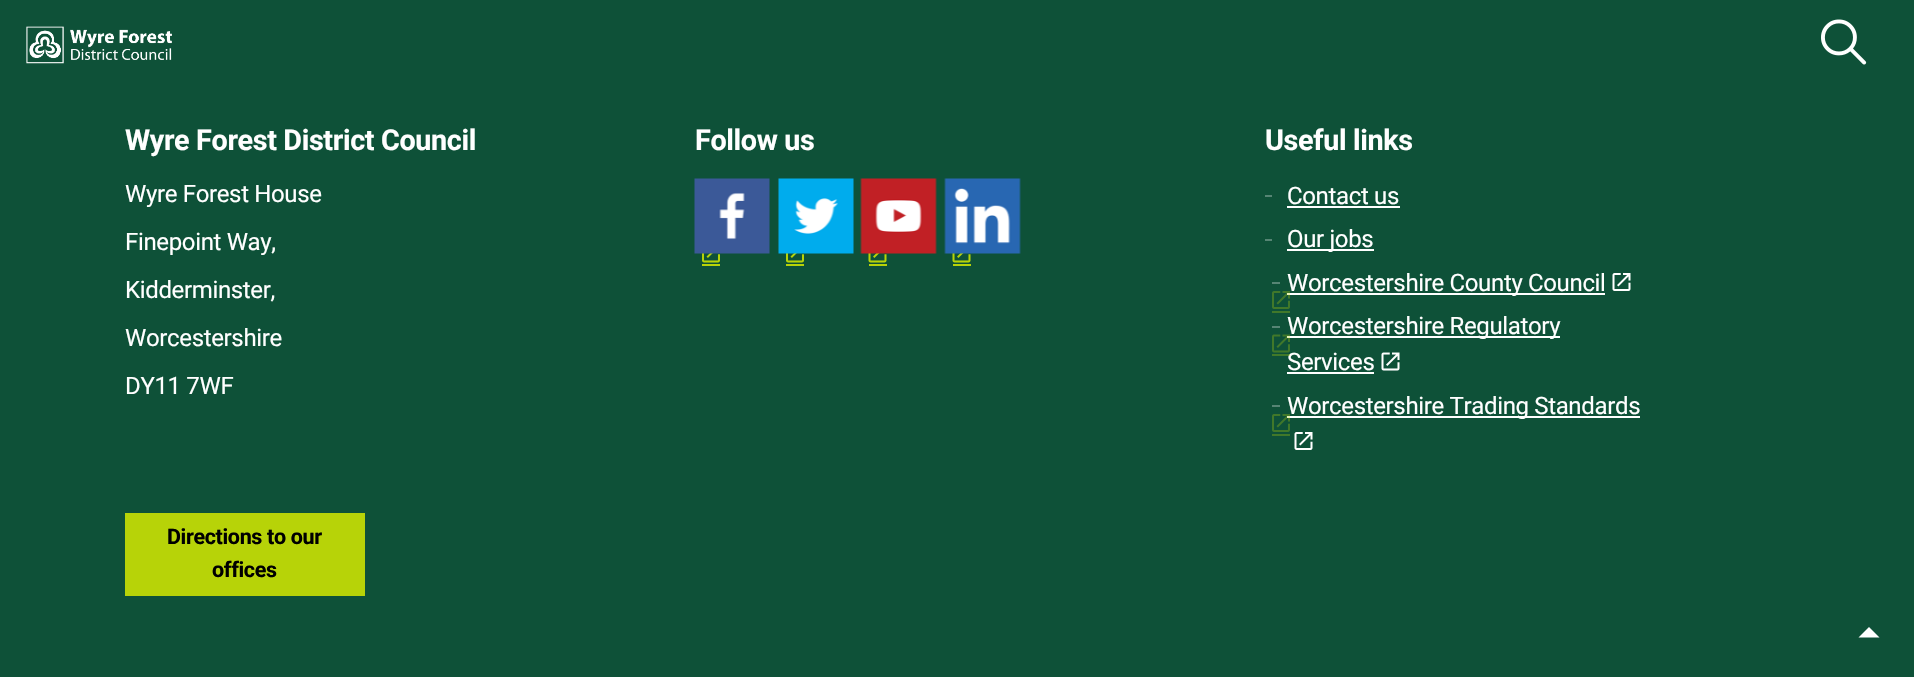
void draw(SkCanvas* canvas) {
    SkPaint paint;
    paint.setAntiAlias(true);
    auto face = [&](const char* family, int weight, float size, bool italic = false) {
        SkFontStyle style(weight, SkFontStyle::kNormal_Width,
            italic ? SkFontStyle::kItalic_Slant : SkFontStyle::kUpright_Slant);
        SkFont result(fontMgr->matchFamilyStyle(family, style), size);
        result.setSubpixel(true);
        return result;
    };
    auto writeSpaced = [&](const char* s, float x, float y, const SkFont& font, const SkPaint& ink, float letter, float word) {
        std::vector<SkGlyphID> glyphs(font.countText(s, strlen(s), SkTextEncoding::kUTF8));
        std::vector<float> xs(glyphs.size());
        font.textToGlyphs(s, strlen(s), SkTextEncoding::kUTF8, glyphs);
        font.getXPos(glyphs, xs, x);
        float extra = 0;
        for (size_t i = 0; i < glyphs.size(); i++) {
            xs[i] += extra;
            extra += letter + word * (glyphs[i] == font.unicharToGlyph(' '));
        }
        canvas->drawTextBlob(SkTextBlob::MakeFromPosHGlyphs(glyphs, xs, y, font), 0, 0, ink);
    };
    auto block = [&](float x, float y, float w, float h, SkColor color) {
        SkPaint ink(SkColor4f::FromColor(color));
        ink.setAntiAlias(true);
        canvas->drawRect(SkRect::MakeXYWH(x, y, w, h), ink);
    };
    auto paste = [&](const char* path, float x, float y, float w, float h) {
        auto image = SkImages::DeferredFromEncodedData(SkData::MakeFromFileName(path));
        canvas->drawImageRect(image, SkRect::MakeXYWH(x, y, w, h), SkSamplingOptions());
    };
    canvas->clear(SkColorSetRGB(14, 81, 56));
    paste("pic1.png", 26, 26, 146, 38);
    paste("pic2.png", 1821, 19, 46, 46);
    auto kFont1 = face("Roboto", 700, 28.75f);
    paint.setColor(SK_ColorWHITE);
    writeSpaced("Wyre Forest District Council", 125, 150, kFont1, paint, -0.35f, 0);
    auto kFont2 = face("Roboto", 400, 24);
    writeSpaced("Wyre Forest House", 125, 202, kFont2, paint, -0.35f, 0);
    writeSpaced("Finepoint Way,", 125, 250, kFont2, paint, -0.35f, 0);
    writeSpaced("Kidderminster,", 125, 298, kFont2, paint, -0.35f, 0);
    writeSpaced("Worcestershire", 125, 346, kFont2, paint, -0.35f, 0);
    writeSpaced("DY11 7WF", 125, 394, kFont2, paint, -0.35f, 0);
    writeSpaced("Follow us", 695, 150, kFont1, paint, -0.35f, 0);
    paste("pic4.png", 702, 253, 18, 10);
    paste("pic3.png", 694, 178, 76, 76);
    block(702, 264, 18, 2, SkColorSetRGB(183, 211, 8));
    paste("pic4.png", 786, 253, 18, 10);
    paste("pic5.png", 778, 178, 76, 76);
    block(786, 264, 18, 2, SkColorSetRGB(183, 211, 8));
    paste("pic7.png", 868, 253, 19, 10);
    paste("pic6.png", 860, 178, 77, 76);
    block(869, 264, 18, 2, SkColorSetRGB(183, 211, 8));
    paste("pic7.png", 952, 253, 19, 10);
    paste("pic8.png", 944, 178, 77, 76);
    block(953, 264, 18, 2, SkColorSetRGB(183, 211, 8));
    writeSpaced("Useful links", 1265, 150, kFont1, paint, -0.35f, 0);
    block(1265, 195, 7, 2, SkColorSetRGB(86, 133, 116));
    writeSpaced("Contact us", 1287, 204, kFont2, paint, -0.35f, 0);
    block(1287, 206, 113, 2, SK_ColorWHITE);
    block(1265, 239, 7, 2, SkColorSetRGB(86, 133, 116));
    block(1287, 249, 87, 2, SK_ColorWHITE);
    writeSpaced("Our jobs", 1287, 247, kFont2, paint, -0.35f, 0);
    block(1272, 282, 8, 2, SkColorSetRGB(86, 133, 116));
    block(1272, 311, 18, 2, SkColorSetRGB(65, 120, 42));
    block(1287, 293, 318, 2, SK_ColorWHITE);
    writeSpaced("Worcestershire County Council", 1287, 291, kFont2, paint, -0.35f, 0);
    paste("pic9.png", 1272, 291, 18, 18);
    paste("pic10.png", 1612, 273, 19, 18);
    block(1272, 326, 8, 2, SkColorSetRGB(86, 133, 116));
    writeSpaced("Services", 1287, 370, kFont2, paint, -0.35f, 0);
    block(1272, 354, 18, 2, SkColorSetARGB(77, 183, 211, 8));
    block(1287, 336, 273, 2, SK_ColorWHITE);
    writeSpaced("Worcestershire Regulatory", 1287, 334, kFont2, paint, -0.35f, 0);
    paste("pic11.png", 1272, 334, 18, 19);
    block(1287, 372, 87, 2, SK_ColorWHITE);
    paste("pic12.png", 1381, 352, 19, 19);
    block(1272, 405, 8, 2, SkColorSetRGB(86, 133, 116));
    block(1272, 434, 18, 2, SkColorSetRGB(65, 120, 42));
    block(1287, 416, 353, 2, SK_ColorWHITE);
    writeSpaced("Worcestershire Trading Standards", 1287, 414, kFont2, paint, -0.35f, 0);
    paste("pic9.png", 1272, 414, 18, 18);
    paste("pic10.png", 1294, 432, 19, 18);
    block(125, 513, 240, 83, SkColorSetRGB(183, 211, 8));
    auto kFont3 = face("Roboto", 700, 21.5f);
    paint.setColor(SK_ColorBLACK);
    writeSpaced("Directions to our", 167, 544, kFont3, paint, -0.35f, 0);
    writeSpaced("offices", 212, 577, kFont3, paint, -0.35f, 0);
    paint.setColor(SK_ColorWHITE);
    canvas->drawPath(SkPathBuilder().moveTo(1858.5f, 637.5f).lineTo(1869, 627).lineTo(1879.5f, 637.5f).close().detach(), paint);
}
